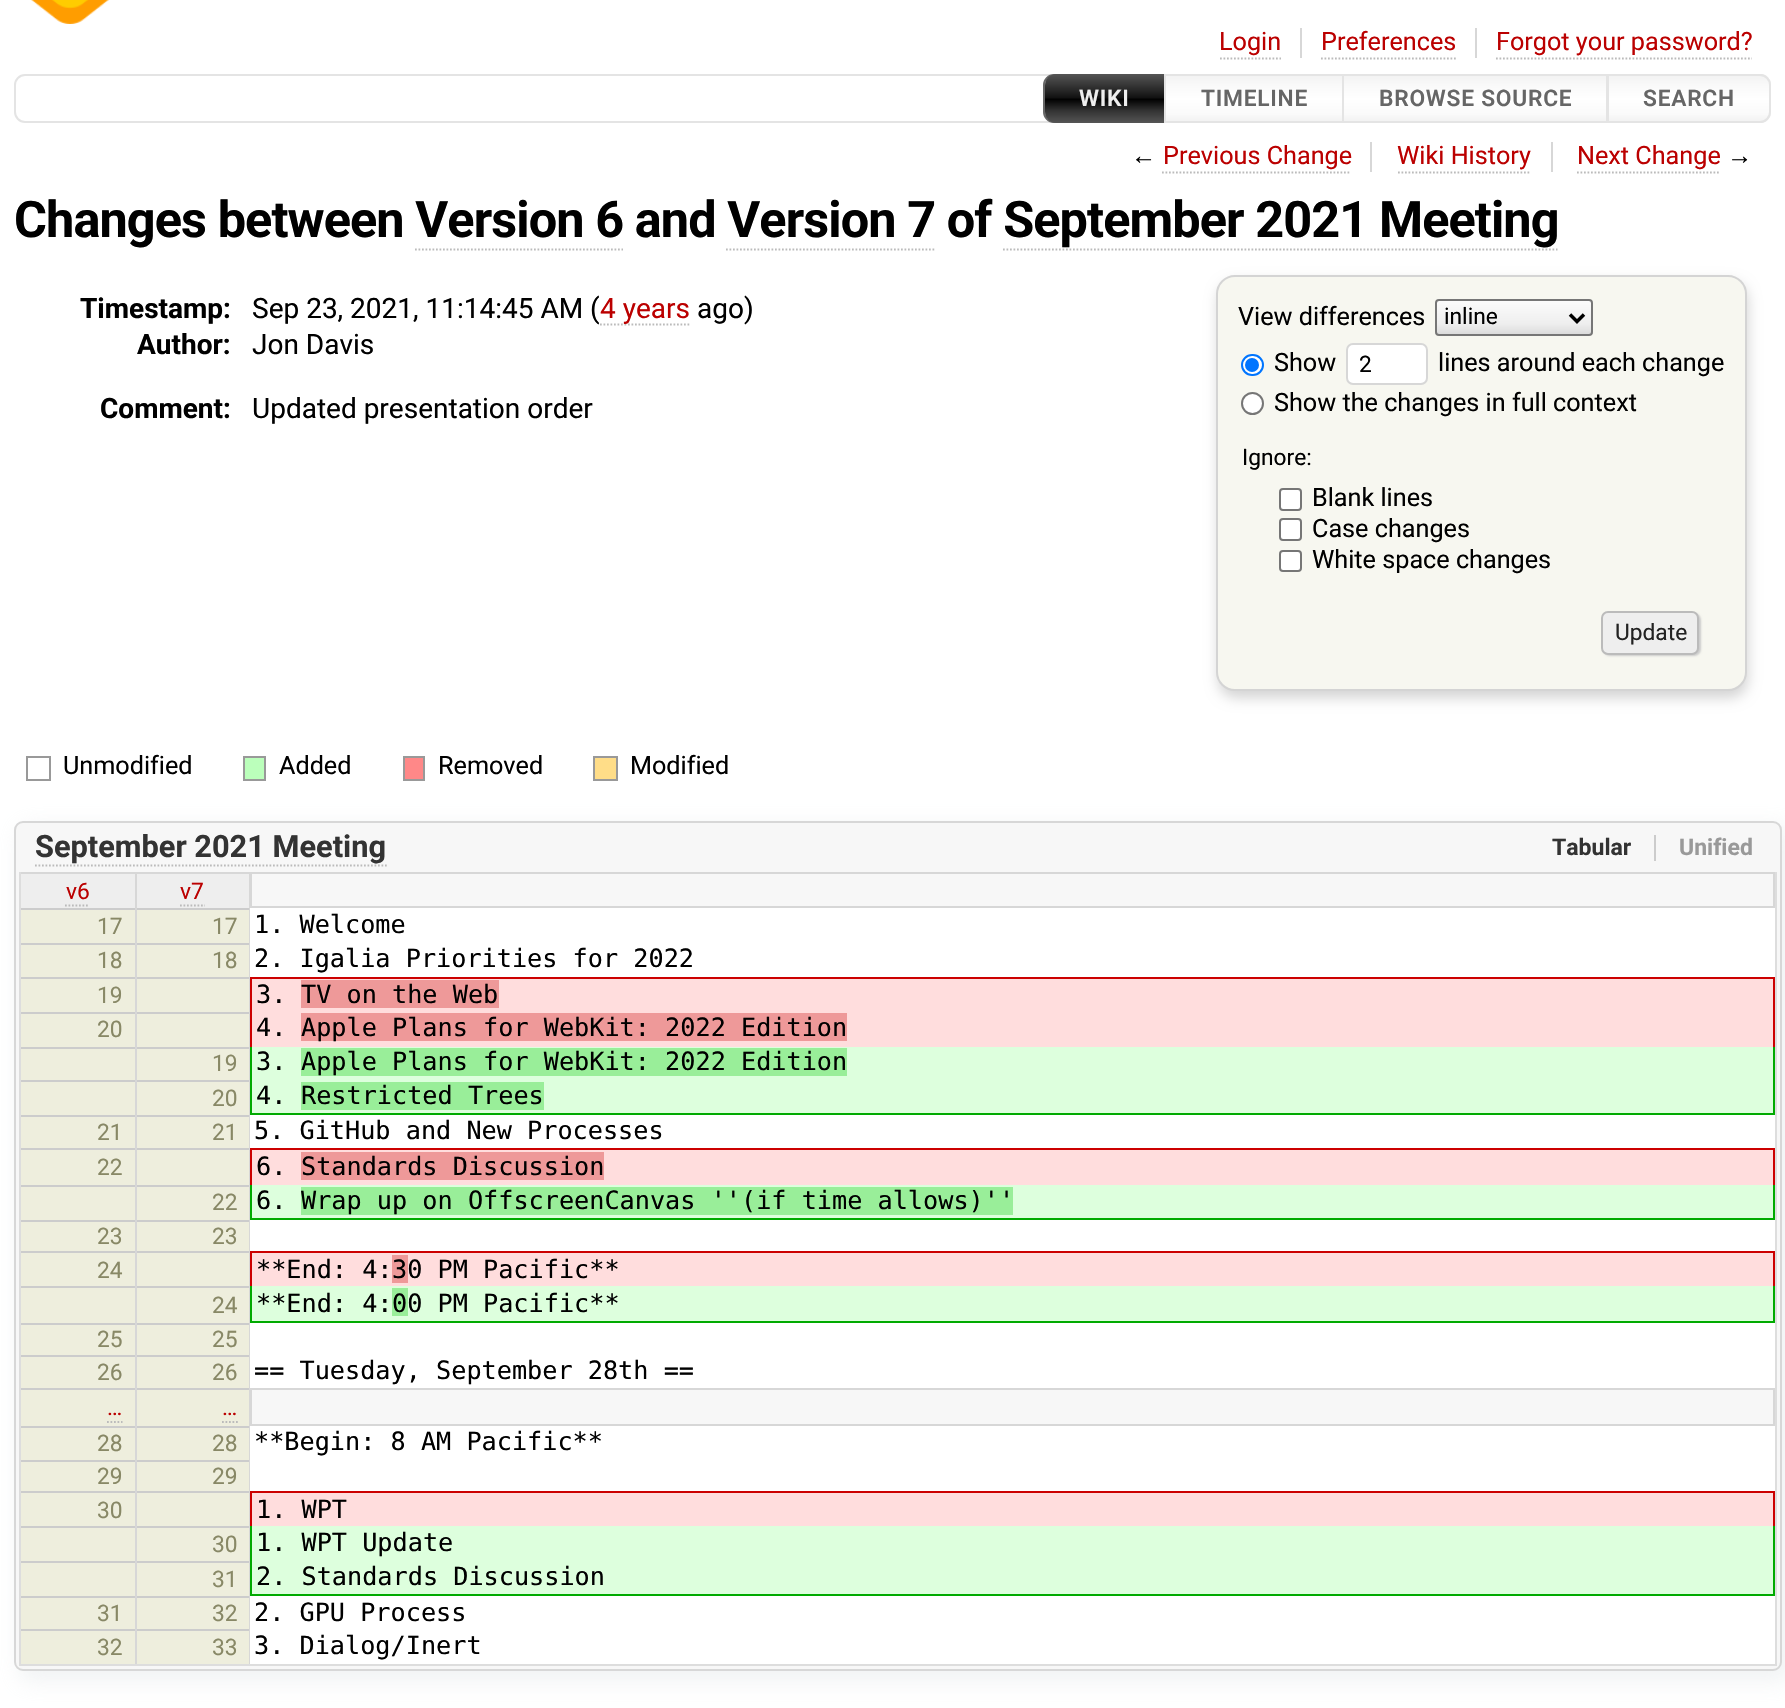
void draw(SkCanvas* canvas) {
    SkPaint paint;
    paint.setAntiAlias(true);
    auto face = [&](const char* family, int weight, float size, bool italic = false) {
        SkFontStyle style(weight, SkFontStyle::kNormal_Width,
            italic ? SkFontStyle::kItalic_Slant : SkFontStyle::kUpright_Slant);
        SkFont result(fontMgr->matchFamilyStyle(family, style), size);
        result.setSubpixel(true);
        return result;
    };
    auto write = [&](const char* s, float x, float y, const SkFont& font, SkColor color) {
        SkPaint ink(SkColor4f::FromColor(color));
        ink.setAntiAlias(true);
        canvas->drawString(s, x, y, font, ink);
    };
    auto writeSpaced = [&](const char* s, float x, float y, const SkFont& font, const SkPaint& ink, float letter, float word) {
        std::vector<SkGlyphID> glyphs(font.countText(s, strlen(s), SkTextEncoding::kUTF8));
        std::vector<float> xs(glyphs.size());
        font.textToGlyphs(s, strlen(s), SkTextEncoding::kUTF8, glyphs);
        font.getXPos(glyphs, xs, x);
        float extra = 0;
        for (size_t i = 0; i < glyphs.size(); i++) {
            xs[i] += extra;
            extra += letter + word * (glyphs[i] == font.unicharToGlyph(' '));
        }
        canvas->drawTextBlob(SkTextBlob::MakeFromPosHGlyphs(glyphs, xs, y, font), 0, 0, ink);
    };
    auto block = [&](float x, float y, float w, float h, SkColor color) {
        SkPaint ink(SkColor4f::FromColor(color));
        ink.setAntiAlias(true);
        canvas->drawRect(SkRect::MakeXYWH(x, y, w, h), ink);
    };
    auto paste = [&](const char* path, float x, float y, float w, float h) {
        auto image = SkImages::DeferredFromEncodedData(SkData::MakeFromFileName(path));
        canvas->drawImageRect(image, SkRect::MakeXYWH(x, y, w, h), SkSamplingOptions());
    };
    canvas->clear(SK_ColorWHITE);
    paste("pic1.png", 31, 0, 78, 24);
    block(1300, 28, 2, 30, SkColorSetRGB(215, 215, 215));
    auto kFont1 = face("Roboto", 400, 25.2f);
    write("Login", 1219, 50, kFont1, SkColorSetRGB(187, 0, 0));
    paint.setStyle(SkPaint::kStroke_Style);
    paint.setStrokeWidth(1.8f);
    paint.setColor(SkColorSetRGB(187, 187, 187));
    paint.setPathEffect(SkDashPathEffect::Make({{1.75f, 1.75f}}, 0));
    canvas->drawPath(SkPathBuilder().moveTo(1220, 58.5f).lineTo(1281, 58.5f).detach(), paint);
    paint.setPathEffect(nullptr);
    block(1475, 28, 2, 30, SkColorSetRGB(215, 215, 215));
    write("Preferences", 1321, 50, kFont1, SkColorSetRGB(187, 0, 0));
    paint.setPathEffect(SkDashPathEffect::Make({{1.75f, 1.75f}}, 0));
    canvas->drawPath(SkPathBuilder().moveTo(1321, 58.5f).lineTo(1456, 58.5f).detach(), paint);
    paint.setPathEffect(nullptr);
    write("Forgot your password?", 1496, 50, kFont1, SkColorSetRGB(187, 0, 0));
    paint.setPathEffect(SkDashPathEffect::Make({{1.75f, 1.75f}}, 0));
    canvas->drawPath(SkPathBuilder().moveTo(1496, 58.5f).lineTo(1752, 58.5f).detach(), paint);
    paint.setPathEffect(nullptr);
    paint.setStrokeWidth(2);
    paint.setColor(SkColorSetRGB(228, 228, 228));
    canvas->drawRoundRect(SkRect::MakeXYWH(15, 75, 1755, 47), 10, 10, paint);
    paint.setColor(SkColorSetRGB(102, 102, 102));
    canvas->drawPath(SkPathBuilder().moveTo(1054, 75).lineTo(1165, 75).lineTo(1165, 122).lineTo(1054, 122).cubicTo(1048.5f, 122, 1044, 117.5f, 1044, 112).lineTo(1044, 85).cubicTo(1044, 79.5f, 1048.5f, 75, 1054, 75).close().detach(), paint);
    paint.setStyle(SkPaint::kFill_Style);
    {
        const SkColor colors[] = {SkColorSetRGB(85, 85, 85), SkColorSetRGB(51, 51, 51), SkColorSetRGB(17, 17, 17), SK_ColorBLACK, SkColorSetRGB(51, 51, 51), SkColorSetRGB(85, 85, 85)};
        const float stops[] = {0, 0.25f, 0.49f, 0.51f, 0.75f, 1};
        const SkPoint ends[] = {{1104, 74}, {1104, 123}};
        paint.setShader(SkGradientShader::MakeLinear(ends, colors, stops, 6, SkTileMode::kClamp));
        paint.setAlpha(255);
    }
    canvas->drawPath(SkPathBuilder().moveTo(1056, 74).lineTo(1164, 74).lineTo(1164, 123).lineTo(1056, 123).cubicTo(1050, 123, 1045, 118, 1045, 112).lineTo(1045, 85).cubicTo(1045, 79, 1050, 74, 1056, 74).close().detach(), paint);
    auto kFont2 = face("Roboto", 600, 22.75f);
    paint.setShader(nullptr);
    paint.setColor(SkColorSetRGB(238, 238, 238));
    writeSpaced("WIKI", 1079, 106, kFont2, paint, 0.75f, 0);
    {
        const SkColor colors[] = {SkColorSetRGB(242, 242, 242), SkColorSetRGB(250, 250, 250), SkColorSetRGB(254, 254, 254), SK_ColorWHITE, SkColorSetRGB(250, 250, 250), SkColorSetRGB(242, 242, 242)};
        const float stops[] = {0, 0.25f, 0.49f, 0.51f, 0.85f, 1};
        const SkPoint ends[] = {{1254, 75}, {1254, 121}};
        paint.setShader(SkGradientShader::MakeLinear(ends, colors, stops, 6, SkTileMode::kClamp));
        paint.setAlpha(255);
    }
    canvas->drawRect(SkRect::MakeXYWH(1166, 76, 176, 45), paint);
    paint.setStyle(SkPaint::kStroke_Style);
    paint.setShader(nullptr);
    paint.setColor(SkColorSetRGB(228, 228, 228));
    canvas->drawRect(SkRect::MakeXYWH(1165, 75, 178, 47), paint);
    paint.setStyle(SkPaint::kFill_Style);
    paint.setColor(SkColorSetRGB(102, 102, 102));
    writeSpaced("TIMELINE", 1201, 106, kFont2, paint, 0.75f, 0);
    {
        const SkColor colors[] = {SkColorSetRGB(242, 242, 242), SkColorSetRGB(250, 250, 250), SkColorSetRGB(254, 254, 254), SK_ColorWHITE, SkColorSetRGB(250, 250, 250), SkColorSetRGB(242, 242, 242)};
        const float stops[] = {0, 0.25f, 0.49f, 0.51f, 0.85f, 1};
        const SkPoint ends[] = {{1475, 75}, {1475, 121}};
        paint.setShader(SkGradientShader::MakeLinear(ends, colors, stops, 6, SkTileMode::kClamp));
        paint.setAlpha(255);
    }
    canvas->drawRect(SkRect::MakeXYWH(1344, 76, 262, 45), paint);
    paint.setStyle(SkPaint::kStroke_Style);
    paint.setShader(nullptr);
    paint.setColor(SkColorSetRGB(228, 228, 228));
    canvas->drawRect(SkRect::MakeXYWH(1343, 75, 264, 47), paint);
    paint.setStyle(SkPaint::kFill_Style);
    paint.setColor(SkColorSetRGB(102, 102, 102));
    writeSpaced("BROWSE SOURCE", 1379, 106, kFont2, paint, 0.75f, 0);
    canvas->save();
    canvas->clipPath(SkPathBuilder().moveTo(1607, 74).lineTo(1760, 74).cubicTo(1766, 74, 1771, 79, 1771, 85).lineTo(1771, 112).cubicTo(1771, 118, 1766, 123, 1760, 123).lineTo(1607, 123).close().detach(), true);
    {
        const SkColor colors[] = {SkColorSetRGB(242, 242, 242), SkColorSetRGB(250, 250, 250), SkColorSetRGB(254, 254, 254), SK_ColorWHITE, SkColorSetRGB(250, 250, 250), SkColorSetRGB(242, 242, 242)};
        const float stops[] = {0, 0.25f, 0.49f, 0.51f, 0.85f, 1};
        const SkPoint ends[] = {{1689, 75}, {1689, 121}};
        paint.setShader(SkGradientShader::MakeLinear(ends, colors, stops, 6, SkTileMode::kClamp));
        paint.setAlpha(255);
    }
    canvas->drawRect(SkRect::MakeXYWH(1609, 75, 162, 46), paint);
    canvas->restore();
    paint.setStyle(SkPaint::kStroke_Style);
    paint.setShader(nullptr);
    paint.setColor(SkColorSetRGB(228, 228, 228));
    canvas->drawPath(SkPathBuilder().moveTo(1608, 75).lineTo(1760, 75).cubicTo(1765.5f, 75, 1770, 79.5f, 1770, 85).lineTo(1770, 112).cubicTo(1770, 117.5f, 1765.5f, 122, 1760, 122).lineTo(1608, 122).close().detach(), paint);
    paint.setStyle(SkPaint::kFill_Style);
    paint.setColor(SkColorSetRGB(102, 102, 102));
    writeSpaced("SEARCH", 1643, 106, kFont2, paint, 0.75f, 0);
    block(1370, 142, 2, 30, SkColorSetRGB(215, 215, 215));
    auto kFont3 = face("Liberation Sans", 400, 25.2f);
    write("←", 1131, 164, kFont3, SK_ColorBLACK);
    write("Previous Change", 1163, 164, kFont1, SkColorSetRGB(187, 0, 0));
    paint.setStyle(SkPaint::kStroke_Style);
    paint.setStrokeWidth(1.8f);
    paint.setColor(SkColorSetRGB(187, 187, 187));
    paint.setPathEffect(SkDashPathEffect::Make({{1.75f, 1.75f}}, 0));
    canvas->drawPath(SkPathBuilder().moveTo(1162, 172.5f).lineTo(1351, 172.5f).detach(), paint);
    paint.setPathEffect(nullptr);
    block(1551, 142, 2, 30, SkColorSetRGB(215, 215, 215));
    write("Wiki History", 1397, 164, kFont1, SkColorSetRGB(187, 0, 0));
    paint.setPathEffect(SkDashPathEffect::Make({{1.75f, 1.75f}}, 0));
    canvas->drawPath(SkPathBuilder().moveTo(1398, 172.5f).lineTo(1531, 172.5f).detach(), paint);
    paint.setPathEffect(nullptr);
    write("Next Change", 1577, 164, kFont1, SkColorSetRGB(187, 0, 0));
    paint.setPathEffect(SkDashPathEffect::Make({{1.75f, 1.75f}}, 0));
    canvas->drawPath(SkPathBuilder().moveTo(1577, 172.5f).lineTo(1720, 172.5f).detach(), paint);
    paint.setPathEffect(nullptr);
    write("→", 1727, 164, kFont3, SK_ColorBLACK);
    auto kFont4 = face("Roboto", 700, 50.4f);
    paint.setStyle(SkPaint::kFill_Style);
    paint.setColor(SK_ColorBLACK);
    writeSpaced("Changes between Version 6 and Version 7 of September 2021 Meeting", 14, 237, kFont4, paint, -0.9f, 0);
    paint.setStyle(SkPaint::kStroke_Style);
    paint.setColor(SkColorSetRGB(187, 187, 187));
    paint.setPathEffect(SkDashPathEffect::Make({{1.75f, 1.75f}}, 0));
    canvas->drawPath(SkPathBuilder().moveTo(415, 249.5f).lineTo(623, 249.5f).detach(), paint);
    paint.setPathEffect(nullptr);
    paint.setPathEffect(SkDashPathEffect::Make({{1.75f, 1.75f}}, 0));
    canvas->drawPath(SkPathBuilder().moveTo(726, 249.5f).lineTo(934.5f, 249.5f).detach(), paint);
    paint.setPathEffect(nullptr);
    paint.setPathEffect(SkDashPathEffect::Make({{1.75f, 1.75f}}, 0));
    canvas->drawPath(SkPathBuilder().moveTo(1003, 249.5f).lineTo(1557.5f, 249.5f).detach(), paint);
    paint.setPathEffect(nullptr);
    auto kFont5 = face("Roboto", 700, 28);
    write("Timestamp:", 80, 318, kFont5, SK_ColorBLACK);
    auto kFont6 = face("Roboto", 400, 28);
    write("Sep 23, 2021, 11:14:45 AM (", 252, 318, kFont6, SK_ColorBLACK);
    paint.setPathEffect(SkDashPathEffect::Make({{1.75f, 1.75f}}, 0));
    canvas->drawPath(SkPathBuilder().moveTo(600, 324.5f).lineTo(689.5f, 324.5f).detach(), paint);
    paint.setPathEffect(nullptr);
    write("4 years", 600, 318, kFont6, SkColorSetRGB(187, 0, 0));
    write("ago)", 697, 318, kFont6, SK_ColorBLACK);
    write("Author:", 137, 354, kFont5, SK_ColorBLACK);
    write("Jon Davis", 252, 354, kFont6, SK_ColorBLACK);
    write("Comment:", 100, 418, kFont5, SK_ColorBLACK);
    write("Updated presentation order", 252, 418, kFont6, SK_ColorBLACK);
    paint.setStyle(SkPaint::kFill_Style);
    paint.setColor(SkColorSetRGB(212, 212, 212));
    paint.setMaskFilter(SkMaskFilter::MakeBlur(kNormal_SkBlurStyle, 6.5f));
    canvas->drawRoundRect(SkRect::MakeXYWH(1218, 282, 530, 416), 19, 19, paint);
    paint.setMaskFilter(nullptr);
    paint.setColor(SkColorSetRGB(247, 247, 240));
    canvas->drawRoundRect(SkRect::MakeXYWH(1217, 276, 529, 414), 18, 18, paint);
    paint.setStyle(SkPaint::kStroke_Style);
    paint.setStrokeWidth(2);
    paint.setColor(SkColorSetRGB(212, 212, 212));
    canvas->drawRoundRect(SkRect::MakeXYWH(1217, 276, 529, 414), 18, 18, paint);
    write("View differences", 1238, 325, kFont1, SK_ColorBLACK);
    canvas->save();
    canvas->clipPath(SkPathBuilder().moveTo(1439, 299).lineTo(1589, 299).cubicTo(1591, 299, 1593, 301, 1593, 303).lineTo(1593, 332).cubicTo(1593, 334, 1591, 336, 1589, 336).lineTo(1439, 336).cubicTo(1437, 336, 1435, 334, 1435, 332).lineTo(1435, 303).cubicTo(1435, 301, 1437, 299, 1439, 299).close().detach(), true);
    paint.setStyle(SkPaint::kFill_Style);
    {
        const SkColor colors[] = {SkColorSetRGB(219, 219, 219), SkColorSetRGB(238, 238, 238), SkColorSetRGB(251, 251, 251)};
        const float stops[] = {0, 0.3f, 1};
        const SkPoint ends[] = {{1514, 334}, {1514, 301}};
        paint.setShader(SkGradientShader::MakeLinear(ends, colors, stops, 3, SkTileMode::kClamp));
        paint.setAlpha(255);
    }
    canvas->drawRect(SkRect::MakeXYWH(1435, 301, 158, 33), paint);
    canvas->restore();
    paint.setStyle(SkPaint::kStroke_Style);
    paint.setShader(nullptr);
    paint.setColor(SkColorSetRGB(118, 118, 118));
    canvas->drawRoundRect(SkRect::MakeXYWH(1436, 300, 156, 35), 3, 3, paint);
    paint.setStrokeWidth(3.5f);
    paint.setColor(SK_ColorBLACK);
    canvas->drawPath(SkPathBuilder().moveTo(1570, 314.5f).lineTo(1577, 321.5f).lineTo(1584, 314.5f).detach(), paint);
    auto kFont7 = face("Roboto", 400, 22.75f);
    write("inline", 1444, 324, kFont7, SK_ColorBLACK);
    paint.setStyle(SkPaint::kFill_Style);
    paint.setColor(SK_ColorWHITE);
    canvas->drawRoundRect(SkRect::MakeXYWH(1242, 355, 21, 20), 10, 10, paint);
    paint.setStyle(SkPaint::kStroke_Style);
    paint.setStrokeWidth(2);
    paint.setColor(SkColorSetRGB(0, 117, 255));
    canvas->drawRoundRect(SkRect::MakeXYWH(1242, 355, 21, 20), 10, 10, paint);
    paint.setStyle(SkPaint::kFill_Style);
    canvas->drawCircle(1252, 365, 7, paint);
    write("Show", 1274, 371, kFont1, SK_ColorBLACK);
    paint.setColor(SK_ColorWHITE);
    canvas->drawRoundRect(SkRect::MakeXYWH(1347, 344, 80, 40), 6, 6, paint);
    paint.setStyle(SkPaint::kStroke_Style);
    paint.setColor(SkColorSetRGB(215, 215, 215));
    canvas->drawRoundRect(SkRect::MakeXYWH(1347, 344, 80, 40), 6, 6, paint);
    write("2", 1359, 372, kFont7, SK_ColorBLACK);
    write("lines around each change", 1438, 371, kFont1, SK_ColorBLACK);
    paint.setStyle(SkPaint::kFill_Style);
    paint.setColor(SK_ColorWHITE);
    canvas->drawCircle(1252.5f, 403.5f, 10.5f, paint);
    paint.setStyle(SkPaint::kStroke_Style);
    paint.setColor(SkColorSetRGB(118, 118, 118));
    canvas->drawCircle(1252.5f, 403.5f, 10.5f, paint);
    write("Show the changes in full context", 1274, 411, kFont1, SK_ColorBLACK);
    write("Ignore:", 1242, 465, kFont7, SK_ColorBLACK);
    paint.setStyle(SkPaint::kFill_Style);
    paint.setColor(SK_ColorWHITE);
    canvas->drawRoundRect(SkRect::MakeXYWH(1280, 489, 21, 21), 3, 3, paint);
    paint.setStyle(SkPaint::kStroke_Style);
    paint.setColor(SkColorSetRGB(118, 118, 118));
    canvas->drawRoundRect(SkRect::MakeXYWH(1280, 489, 21, 21), 3, 3, paint);
    write("Blank lines", 1312, 506, kFont1, SK_ColorBLACK);
    paint.setStyle(SkPaint::kFill_Style);
    paint.setColor(SK_ColorWHITE);
    canvas->drawRoundRect(SkRect::MakeXYWH(1280, 519, 21, 21), 3, 3, paint);
    paint.setStyle(SkPaint::kStroke_Style);
    paint.setColor(SkColorSetRGB(118, 118, 118));
    canvas->drawRoundRect(SkRect::MakeXYWH(1280, 519, 21, 21), 3, 3, paint);
    write("Case changes", 1312, 537, kFont1, SK_ColorBLACK);
    paint.setStyle(SkPaint::kFill_Style);
    paint.setColor(SK_ColorWHITE);
    canvas->drawRoundRect(SkRect::MakeXYWH(1280, 551, 21, 20), 3, 3, paint);
    paint.setStyle(SkPaint::kStroke_Style);
    paint.setColor(SkColorSetRGB(118, 118, 118));
    canvas->drawRoundRect(SkRect::MakeXYWH(1280, 551, 21, 20), 3, 3, paint);
    write("White space changes", 1312, 568, kFont1, SK_ColorBLACK);
    paint.setStyle(SkPaint::kFill_Style);
    paint.setColor(SkColorSetRGB(204, 204, 204));
    paint.setMaskFilter(SkMaskFilter::MakeBlur(kNormal_SkBlurStyle, 1));
    canvas->drawRoundRect(SkRect::MakeXYWH(1603, 613, 98, 43), 7, 7, paint);
    paint.setMaskFilter(nullptr);
    paint.setColor(SkColorSetRGB(238, 238, 238));
    canvas->drawRoundRect(SkRect::MakeXYWH(1602, 612, 96, 42), 6, 6, paint);
    paint.setStyle(SkPaint::kStroke_Style);
    paint.setColor(SkColorSetRGB(187, 187, 187));
    canvas->drawRoundRect(SkRect::MakeXYWH(1602, 612, 96, 42), 6, 6, paint);
    write("Update", 1615, 640, kFont7, SkColorSetRGB(34, 34, 34));
    paint.setColor(SkColorSetRGB(153, 153, 153));
    canvas->drawRect(SkRect::MakeXYWH(27, 757, 23, 23), paint);
    write("Unmodified", 63, 774, kFont1, SK_ColorBLACK);
    paint.setStyle(SkPaint::kFill_Style);
    paint.setColor(SkColorSetRGB(187, 255, 187));
    canvas->drawRect(SkRect::MakeXYWH(244, 757, 21, 23), paint);
    paint.setStyle(SkPaint::kStroke_Style);
    paint.setColor(SkColorSetRGB(153, 153, 153));
    canvas->drawRect(SkRect::MakeXYWH(244, 757, 21, 23), paint);
    write("Added", 279, 774, kFont1, SK_ColorBLACK);
    paint.setStyle(SkPaint::kFill_Style);
    paint.setColor(SkColorSetRGB(255, 136, 136));
    canvas->drawRect(SkRect::MakeXYWH(404, 757, 20, 23), paint);
    paint.setStyle(SkPaint::kStroke_Style);
    paint.setColor(SkColorSetRGB(153, 153, 153));
    canvas->drawRect(SkRect::MakeXYWH(404, 757, 20, 23), paint);
    write("Removed", 438, 774, kFont1, SK_ColorBLACK);
    paint.setStyle(SkPaint::kFill_Style);
    paint.setColor(SkColorSetRGB(255, 221, 136));
    canvas->drawRect(SkRect::MakeXYWH(594, 757, 23, 23), paint);
    paint.setStyle(SkPaint::kStroke_Style);
    paint.setColor(SkColorSetRGB(153, 153, 153));
    canvas->drawRect(SkRect::MakeXYWH(594, 757, 23, 23), paint);
    write("Modified", 630, 774, kFont1, SK_ColorBLACK);
    paint.setStyle(SkPaint::kFill_Style);
    paint.setColor(SkColorSetARGB(77, 210, 215, 220));
    paint.setMaskFilter(SkMaskFilter::MakeBlur(kNormal_SkBlurStyle, 10.5f));
    canvas->drawRoundRect(SkRect::MakeXYWH(19, 826, 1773, 856), 11, 11, paint);
    paint.setMaskFilter(nullptr);
    paint.setColor(SkColorSetRGB(247, 247, 247));
    canvas->drawRoundRect(SkRect::MakeXYWH(15, 822, 1766, 848), 8, 8, paint);
    paint.setStyle(SkPaint::kStroke_Style);
    paint.setColor(SkColorSetRGB(215, 215, 215));
    canvas->drawRoundRect(SkRect::MakeXYWH(15, 822, 1766, 848), 8, 8, paint);
    auto kFont8 = face("Roboto", 700, 30.75f);
    write("September 2021 Meeting", 35, 857, kFont8, SkColorSetRGB(51, 51, 51));
    paint.setStrokeWidth(1.8f);
    paint.setColor(SkColorSetRGB(187, 187, 187));
    paint.setPathEffect(SkDashPathEffect::Make({{1.75f, 1.75f}}, 0));
    canvas->drawPath(SkPathBuilder().moveTo(35, 865.5f).lineTo(387, 865.5f).detach(), paint);
    paint.setPathEffect(nullptr);
    auto kFont9 = face("Roboto", 700, 23);
    write("Tabular", 1552, 855, kFont9, SkColorSetRGB(51, 51, 51));
    write("Unified", 1679, 855, kFont9, SkColorSetRGB(153, 153, 153));
    block(1654, 835, 2, 26, SkColorSetRGB(204, 204, 204));
    block(1775, 872, 2, 794, SkColorSetRGB(221, 221, 221));
    block(19, 1664, 1757, 2, SkColorSetRGB(221, 221, 221));
    block(19, 872, 2, 794, SkColorSetRGB(221, 221, 221));
    block(21, 874, 114, 34, SkColorSetRGB(238, 238, 238));
    block(21, 872, 229, 2, SkColorSetRGB(215, 215, 215));
    block(135, 872, 2, 36, SkColorSetRGB(215, 215, 215));
    write("v6", 66, 899, kFont7, SkColorSetRGB(187, 0, 0));
    paint.setPathEffect(SkDashPathEffect::Make({{1.75f, 1.75f}}, 0));
    canvas->drawPath(SkPathBuilder().moveTo(65, 905.5f).lineTo(89, 905.5f).detach(), paint);
    paint.setPathEffect(nullptr);
    block(137, 874, 112, 34, SkColorSetRGB(238, 238, 238));
    block(249, 872, 1, 36, SkColorSetRGB(215, 215, 215));
    write("v7", 180, 899, kFont7, SkColorSetRGB(187, 0, 0));
    paint.setPathEffect(SkDashPathEffect::Make({{1.75f, 1.75f}}, 0));
    canvas->drawPath(SkPathBuilder().moveTo(180, 905.5f).lineTo(205, 905.5f).detach(), paint);
    paint.setPathEffect(nullptr);
    paint.setStrokeWidth(2);
    paint.setColor(SkColorSetRGB(215, 215, 215));
    canvas->drawRect(SkRect::MakeXYWH(251, 873, 1523, 34), paint);
    block(21, 910, 114, 33, SkColorSetRGB(238, 238, 221));
    block(21, 908, 229, 2, SkColorSetRGB(204, 204, 204));
    block(135, 908, 2, 35, SkColorSetRGB(215, 215, 215));
    write("17", 97, 934, kFont7, SkColorSetRGB(136, 136, 102));
    block(137, 910, 112, 33, SkColorSetRGB(238, 238, 221));
    block(249, 908, 1, 35, SkColorSetRGB(215, 215, 215));
    write("17", 212, 934, kFont7, SkColorSetRGB(136, 136, 102));
    block(250, 908, 1525, 69, SK_ColorWHITE);
    auto kFont10 = face("DejaVu Sans Mono", 400, 25.2f);
    write("1. Welcome", 254, 933, kFont10, SK_ColorBLACK);
    block(21, 945, 114, 32, SkColorSetRGB(238, 238, 221));
    block(21, 943, 229, 2, SkColorSetRGB(204, 204, 204));
    block(135, 943, 2, 34, SkColorSetRGB(215, 215, 215));
    write("18", 97, 968, kFont7, SkColorSetRGB(136, 136, 102));
    block(137, 945, 112, 32, SkColorSetRGB(238, 238, 221));
    block(249, 943, 1, 34, SkColorSetRGB(215, 215, 215));
    write("18", 212, 968, kFont7, SkColorSetRGB(136, 136, 102));
    write("2. Igalia Priorities for 2022", 254, 967, kFont10, SK_ColorBLACK);
    block(21, 979, 114, 33, SkColorSetRGB(238, 238, 221));
    block(21, 977, 229, 2, SkColorSetRGB(204, 204, 204));
    block(135, 977, 2, 35, SkColorSetRGB(215, 215, 215));
    write("19", 97, 1003, kFont7, SkColorSetRGB(136, 136, 102));
    block(137, 979, 112, 33, SkColorSetRGB(238, 238, 221));
    block(249, 977, 1, 35, SkColorSetRGB(215, 215, 215));
    block(252, 979, 1521, 68, SkColorSetRGB(255, 221, 221));
    block(250, 977, 1525, 2, SkColorSetRGB(204, 0, 0));
    block(1773, 977, 2, 70, SkColorSetRGB(204, 0, 0));
    block(250, 977, 2, 70, SkColorSetRGB(204, 0, 0));
    write("3.", 256, 1003, kFont10, SK_ColorBLACK);
    block(301, 980, 198, 28, SkColorSetRGB(238, 153, 153));
    write("TV on the Web", 301, 1003, kFont10, SK_ColorBLACK);
    block(21, 1014, 114, 33, SkColorSetRGB(238, 238, 221));
    block(21, 1012, 229, 2, SkColorSetRGB(204, 204, 204));
    block(135, 1012, 2, 35, SkColorSetRGB(215, 215, 215));
    write("20", 97, 1037, kFont7, SkColorSetRGB(136, 136, 102));
    block(137, 1014, 112, 33, SkColorSetRGB(238, 238, 221));
    block(249, 1012, 1, 35, SkColorSetRGB(215, 215, 215));
    write("4.", 256, 1036, kFont10, SK_ColorBLACK);
    block(301, 1013, 546, 28, SkColorSetRGB(238, 153, 153));
    write("Apple Plans for WebKit: 2022 Edition", 301, 1036, kFont10, SK_ColorBLACK);
    block(21, 1049, 114, 31, SkColorSetRGB(238, 238, 221));
    block(21, 1047, 229, 2, SkColorSetRGB(204, 204, 204));
    block(135, 1047, 2, 33, SkColorSetRGB(215, 215, 215));
    block(252, 1047, 1521, 66, SkColorSetRGB(221, 255, 221));
    block(1773, 1047, 2, 68, SkColorSetRGB(0, 170, 0));
    block(250, 1047, 2, 33, SkColorSetRGB(0, 170, 0));
    write("3.", 256, 1070, kFont10, SK_ColorBLACK);
    block(301, 1048, 546, 28, SkColorSetRGB(153, 238, 153));
    write("Apple Plans for WebKit: 2022 Edition", 301, 1070, kFont10, SK_ColorBLACK);
    block(137, 1049, 112, 31, SkColorSetRGB(238, 238, 221));
    block(249, 1047, 1, 33, SkColorSetRGB(215, 215, 215));
    write("19", 212, 1071, kFont7, SkColorSetRGB(136, 136, 102));
    block(21, 1082, 114, 33, SkColorSetRGB(238, 238, 221));
    block(21, 1080, 229, 2, SkColorSetRGB(204, 204, 204));
    block(135, 1080, 2, 35, SkColorSetRGB(215, 215, 215));
    block(250, 1113, 1525, 2, SkColorSetRGB(0, 170, 0));
    block(250, 1080, 2, 35, SkColorSetRGB(0, 170, 0));
    write("4.", 256, 1104, kFont10, SK_ColorBLACK);
    block(301, 1082, 243, 28, SkColorSetRGB(153, 238, 153));
    write("Restricted Trees", 301, 1104, kFont10, SK_ColorBLACK);
    block(137, 1082, 112, 33, SkColorSetRGB(238, 238, 221));
    block(249, 1080, 1, 35, SkColorSetRGB(215, 215, 215));
    write("20", 212, 1106, kFont7, SkColorSetRGB(136, 136, 102));
    block(21, 1117, 114, 31, SkColorSetRGB(238, 238, 221));
    block(21, 1115, 229, 2, SkColorSetRGB(204, 204, 204));
    block(135, 1115, 2, 33, SkColorSetRGB(215, 215, 215));
    write("21", 97, 1140, kFont7, SkColorSetRGB(136, 136, 102));
    block(137, 1117, 112, 31, SkColorSetRGB(238, 238, 221));
    block(249, 1115, 1, 33, SkColorSetRGB(215, 215, 215));
    write("21", 212, 1140, kFont7, SkColorSetRGB(136, 136, 102));
    block(250, 1115, 1525, 33, SK_ColorWHITE);
    write("5. GitHub and New Processes", 254, 1139, kFont10, SK_ColorBLACK);
    block(21, 1150, 114, 35, SkColorSetRGB(238, 238, 221));
    block(21, 1148, 229, 2, SkColorSetRGB(204, 204, 204));
    block(135, 1148, 2, 37, SkColorSetRGB(215, 215, 215));
    write("22", 97, 1175, kFont7, SkColorSetRGB(136, 136, 102));
    block(137, 1150, 112, 35, SkColorSetRGB(238, 238, 221));
    block(249, 1148, 1, 37, SkColorSetRGB(215, 215, 215));
    block(252, 1150, 1521, 35, SkColorSetRGB(255, 221, 221));
    block(250, 1148, 1525, 2, SkColorSetRGB(204, 0, 0));
    block(1773, 1148, 2, 37, SkColorSetRGB(204, 0, 0));
    block(250, 1148, 2, 37, SkColorSetRGB(204, 0, 0));
    write("6.", 256, 1175, kFont10, SK_ColorBLACK);
    block(301, 1152, 303, 28, SkColorSetRGB(238, 153, 153));
    write("Standards Discussion", 301, 1175, kFont10, SK_ColorBLACK);
    block(21, 1187, 114, 33, SkColorSetRGB(238, 238, 221));
    block(21, 1185, 229, 2, SkColorSetRGB(204, 204, 204));
    block(135, 1185, 2, 35, SkColorSetRGB(215, 215, 215));
    block(252, 1185, 1521, 33, SkColorSetRGB(221, 255, 221));
    block(1773, 1185, 2, 35, SkColorSetRGB(0, 170, 0));
    block(250, 1218, 1525, 2, SkColorSetRGB(0, 170, 0));
    block(250, 1185, 2, 35, SkColorSetRGB(0, 170, 0));
    write("6.", 256, 1209, kFont10, SK_ColorBLACK);
    block(301, 1187, 712, 28, SkColorSetRGB(153, 238, 153));
    write("Wrap up on OffscreenCanvas ''(if time allows)''", 301, 1209, kFont10, SK_ColorBLACK);
    block(137, 1187, 112, 33, SkColorSetRGB(238, 238, 221));
    block(249, 1185, 1, 35, SkColorSetRGB(215, 215, 215));
    write("22", 212, 1210, kFont7, SkColorSetRGB(136, 136, 102));
    block(21, 1222, 114, 29, SkColorSetRGB(238, 238, 221));
    block(21, 1220, 229, 2, SkColorSetRGB(204, 204, 204));
    block(135, 1220, 2, 31, SkColorSetRGB(215, 215, 215));
    write("23", 97, 1244, kFont7, SkColorSetRGB(136, 136, 102));
    block(137, 1222, 112, 29, SkColorSetRGB(238, 238, 221));
    block(249, 1220, 1, 31, SkColorSetRGB(215, 215, 215));
    write("23", 212, 1244, kFont7, SkColorSetRGB(136, 136, 102));
    block(250, 1220, 1525, 31, SK_ColorWHITE);
    block(21, 1253, 114, 33, SkColorSetRGB(238, 238, 221));
    block(21, 1251, 229, 2, SkColorSetRGB(204, 204, 204));
    block(135, 1251, 2, 35, SkColorSetRGB(215, 215, 215));
    write("24", 97, 1278, kFont7, SkColorSetRGB(136, 136, 102));
    block(137, 1253, 112, 33, SkColorSetRGB(238, 238, 221));
    block(249, 1251, 1, 35, SkColorSetRGB(215, 215, 215));
    block(252, 1253, 1521, 33, SkColorSetRGB(255, 221, 221));
    block(250, 1251, 1525, 2, SkColorSetRGB(204, 0, 0));
    block(1773, 1251, 2, 35, SkColorSetRGB(204, 0, 0));
    block(250, 1251, 2, 35, SkColorSetRGB(204, 0, 0));
    write("**End: 4:", 256, 1278, kFont10, SK_ColorBLACK);
    block(392, 1255, 16, 28, SkColorSetRGB(238, 153, 153));
    write("30 PM Pacific**", 392, 1278, kFont10, SK_ColorBLACK);
    block(21, 1288, 114, 35, SkColorSetRGB(238, 238, 221));
    block(21, 1286, 229, 2, SkColorSetRGB(204, 204, 204));
    block(135, 1286, 2, 37, SkColorSetRGB(215, 215, 215));
    block(252, 1286, 1521, 35, SkColorSetRGB(221, 255, 221));
    block(1773, 1286, 2, 37, SkColorSetRGB(0, 170, 0));
    block(250, 1321, 1525, 2, SkColorSetRGB(0, 170, 0));
    block(250, 1286, 2, 37, SkColorSetRGB(0, 170, 0));
    write("**End: 4:", 256, 1312, kFont10, SK_ColorBLACK);
    block(392, 1288, 16, 28, SkColorSetRGB(153, 238, 153));
    write("00 PM Pacific**", 392, 1312, kFont10, SK_ColorBLACK);
    block(137, 1288, 112, 35, SkColorSetRGB(238, 238, 221));
    block(249, 1286, 1, 37, SkColorSetRGB(215, 215, 215));
    write("24", 212, 1313, kFont7, SkColorSetRGB(136, 136, 102));
    block(21, 1325, 114, 30, SkColorSetRGB(238, 238, 221));
    block(21, 1323, 229, 2, SkColorSetRGB(204, 204, 204));
    block(135, 1323, 2, 32, SkColorSetRGB(215, 215, 215));
    write("25", 97, 1347, kFont7, SkColorSetRGB(136, 136, 102));
    block(137, 1325, 112, 30, SkColorSetRGB(238, 238, 221));
    block(249, 1323, 1, 32, SkColorSetRGB(215, 215, 215));
    write("25", 212, 1347, kFont7, SkColorSetRGB(136, 136, 102));
    block(250, 1323, 1525, 65, SK_ColorWHITE);
    block(21, 1357, 114, 31, SkColorSetRGB(238, 238, 221));
    block(21, 1355, 229, 2, SkColorSetRGB(204, 204, 204));
    block(135, 1355, 2, 33, SkColorSetRGB(215, 215, 215));
    write("26", 97, 1380, kFont7, SkColorSetRGB(136, 136, 102));
    block(137, 1357, 112, 31, SkColorSetRGB(238, 238, 221));
    block(249, 1355, 1, 33, SkColorSetRGB(215, 215, 215));
    write("26", 212, 1380, kFont7, SkColorSetRGB(136, 136, 102));
    write("== Tuesday, September 28th ==", 254, 1379, kFont10, SK_ColorBLACK);
    block(21, 1390, 114, 36, SkColorSetRGB(238, 238, 221));
    block(21, 1388, 229, 2, SkColorSetRGB(204, 204, 204));
    block(135, 1388, 2, 38, SkColorSetRGB(215, 215, 215));
    write("…", 107, 1415, kFont7, SkColorSetRGB(187, 0, 0));
    paint.setStrokeWidth(1.8f);
    paint.setColor(SkColorSetRGB(187, 187, 187));
    paint.setPathEffect(SkDashPathEffect::Make({{1.75f, 1.75f}}, 0));
    canvas->drawPath(SkPathBuilder().moveTo(107, 1422).lineTo(122.5f, 1422).detach(), paint);
    paint.setPathEffect(nullptr);
    block(137, 1390, 112, 36, SkColorSetRGB(238, 238, 221));
    block(249, 1388, 1, 38, SkColorSetRGB(215, 215, 215));
    write("…", 222, 1415, kFont7, SkColorSetRGB(187, 0, 0));
    paint.setPathEffect(SkDashPathEffect::Make({{1.75f, 1.75f}}, 0));
    canvas->drawPath(SkPathBuilder().moveTo(222, 1422).lineTo(238, 1422).detach(), paint);
    paint.setPathEffect(nullptr);
    paint.setStrokeWidth(2);
    paint.setColor(SkColorSetRGB(215, 215, 215));
    canvas->drawRect(SkRect::MakeXYWH(251, 1389, 1523, 36), paint);
    block(21, 1428, 114, 32, SkColorSetRGB(238, 238, 221));
    block(21, 1426, 229, 2, SkColorSetRGB(204, 204, 204));
    block(135, 1426, 2, 34, SkColorSetRGB(215, 215, 215));
    write("28", 97, 1451, kFont7, SkColorSetRGB(136, 136, 102));
    block(137, 1428, 112, 32, SkColorSetRGB(238, 238, 221));
    block(249, 1426, 1, 34, SkColorSetRGB(215, 215, 215));
    write("28", 212, 1451, kFont7, SkColorSetRGB(136, 136, 102));
    block(250, 1426, 1525, 65, SK_ColorWHITE);
    write("**Begin: 8 AM Pacific**", 254, 1450, kFont10, SK_ColorBLACK);
    block(21, 1462, 114, 29, SkColorSetRGB(238, 238, 221));
    block(21, 1460, 229, 2, SkColorSetRGB(204, 204, 204));
    block(135, 1460, 2, 31, SkColorSetRGB(215, 215, 215));
    write("29", 97, 1484, kFont7, SkColorSetRGB(136, 136, 102));
    block(137, 1462, 112, 29, SkColorSetRGB(238, 238, 221));
    block(249, 1460, 1, 31, SkColorSetRGB(215, 215, 215));
    write("29", 212, 1484, kFont7, SkColorSetRGB(136, 136, 102));
    block(21, 1493, 114, 33, SkColorSetRGB(238, 238, 221));
    block(21, 1491, 229, 2, SkColorSetRGB(204, 204, 204));
    block(135, 1491, 2, 35, SkColorSetRGB(215, 215, 215));
    write("30", 97, 1518, kFont7, SkColorSetRGB(136, 136, 102));
    block(137, 1493, 112, 33, SkColorSetRGB(238, 238, 221));
    block(249, 1491, 1, 35, SkColorSetRGB(215, 215, 215));
    block(252, 1493, 1521, 33, SkColorSetRGB(255, 221, 221));
    block(250, 1491, 1525, 2, SkColorSetRGB(204, 0, 0));
    block(1773, 1491, 2, 35, SkColorSetRGB(204, 0, 0));
    block(250, 1491, 2, 35, SkColorSetRGB(204, 0, 0));
    write("1. WPT", 256, 1518, kFont10, SK_ColorBLACK);
    block(21, 1528, 114, 33, SkColorSetRGB(238, 238, 221));
    block(21, 1526, 229, 2, SkColorSetRGB(204, 204, 204));
    block(135, 1526, 2, 35, SkColorSetRGB(215, 215, 215));
    block(252, 1526, 1521, 68, SkColorSetRGB(221, 255, 221));
    block(1773, 1526, 2, 70, SkColorSetRGB(0, 170, 0));
    block(250, 1526, 2, 35, SkColorSetRGB(0, 170, 0));
    write("1. WPT Update", 256, 1551, kFont10, SK_ColorBLACK);
    block(137, 1528, 112, 33, SkColorSetRGB(238, 238, 221));
    block(249, 1526, 1, 35, SkColorSetRGB(215, 215, 215));
    write("30", 212, 1552, kFont7, SkColorSetRGB(136, 136, 102));
    block(21, 1563, 114, 33, SkColorSetRGB(238, 238, 221));
    block(21, 1561, 229, 2, SkColorSetRGB(204, 204, 204));
    block(135, 1561, 2, 35, SkColorSetRGB(215, 215, 215));
    block(250, 1594, 1525, 2, SkColorSetRGB(0, 170, 0));
    block(250, 1561, 2, 35, SkColorSetRGB(0, 170, 0));
    write("2. Standards Discussion", 256, 1585, kFont10, SK_ColorBLACK);
    block(137, 1563, 112, 33, SkColorSetRGB(238, 238, 221));
    block(249, 1561, 1, 35, SkColorSetRGB(215, 215, 215));
    write("31", 212, 1587, kFont7, SkColorSetRGB(136, 136, 102));
    block(21, 1598, 114, 31, SkColorSetRGB(238, 238, 221));
    block(21, 1596, 229, 2, SkColorSetRGB(204, 204, 204));
    block(135, 1596, 2, 33, SkColorSetRGB(215, 215, 215));
    write("31", 97, 1621, kFont7, SkColorSetRGB(136, 136, 102));
    block(137, 1598, 112, 31, SkColorSetRGB(238, 238, 221));
    block(249, 1596, 1, 33, SkColorSetRGB(215, 215, 215));
    write("32", 212, 1621, kFont7, SkColorSetRGB(136, 136, 102));
    block(250, 1596, 1525, 68, SK_ColorWHITE);
    write("2. GPU Process", 254, 1621, kFont10, SK_ColorBLACK);
    block(21, 1631, 114, 33, SkColorSetRGB(238, 238, 221));
    block(21, 1629, 229, 2, SkColorSetRGB(204, 204, 204));
    block(135, 1629, 2, 35, SkColorSetRGB(215, 215, 215));
    write("32", 97, 1655, kFont7, SkColorSetRGB(136, 136, 102));
    block(137, 1631, 112, 33, SkColorSetRGB(238, 238, 221));
    block(249, 1629, 1, 35, SkColorSetRGB(215, 215, 215));
    write("33", 212, 1655, kFont7, SkColorSetRGB(136, 136, 102));
    write("3. Dialog/Inert", 254, 1654, kFont10, SK_ColorBLACK);
}
